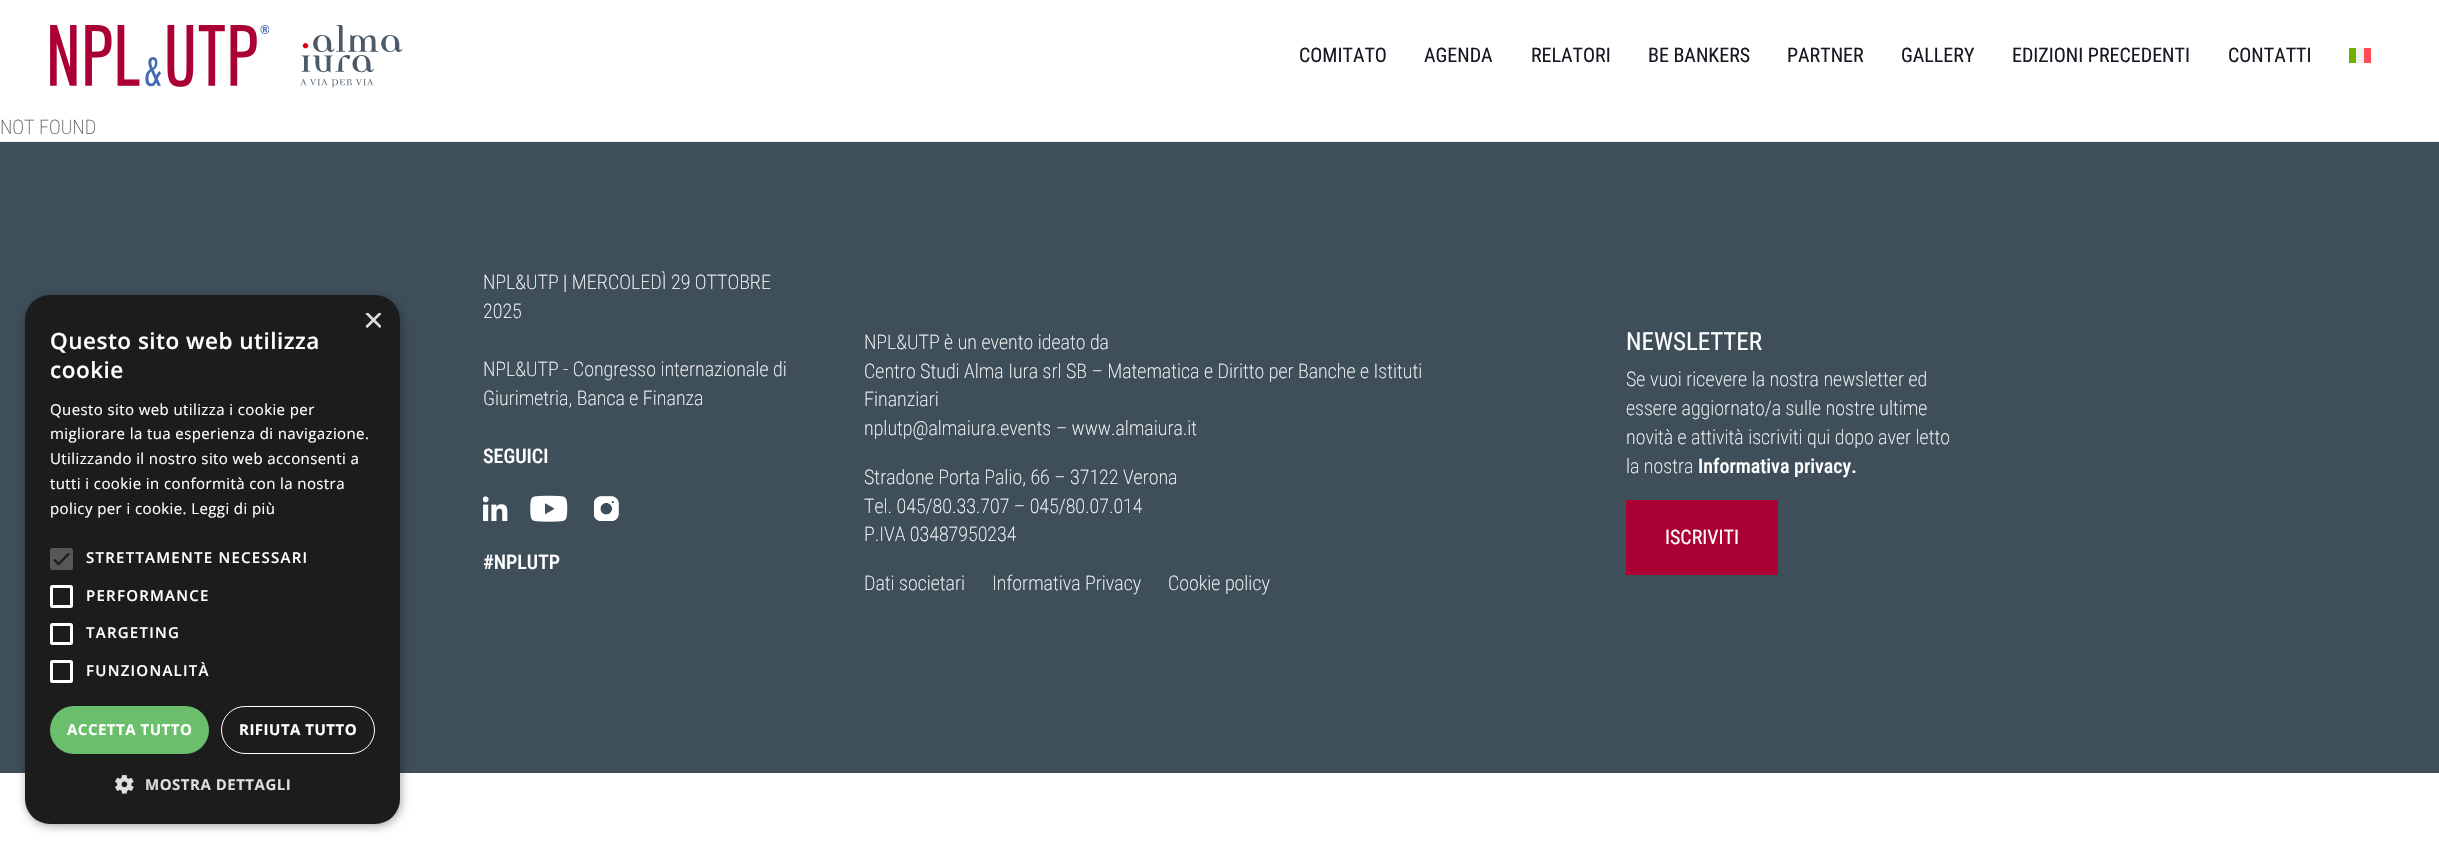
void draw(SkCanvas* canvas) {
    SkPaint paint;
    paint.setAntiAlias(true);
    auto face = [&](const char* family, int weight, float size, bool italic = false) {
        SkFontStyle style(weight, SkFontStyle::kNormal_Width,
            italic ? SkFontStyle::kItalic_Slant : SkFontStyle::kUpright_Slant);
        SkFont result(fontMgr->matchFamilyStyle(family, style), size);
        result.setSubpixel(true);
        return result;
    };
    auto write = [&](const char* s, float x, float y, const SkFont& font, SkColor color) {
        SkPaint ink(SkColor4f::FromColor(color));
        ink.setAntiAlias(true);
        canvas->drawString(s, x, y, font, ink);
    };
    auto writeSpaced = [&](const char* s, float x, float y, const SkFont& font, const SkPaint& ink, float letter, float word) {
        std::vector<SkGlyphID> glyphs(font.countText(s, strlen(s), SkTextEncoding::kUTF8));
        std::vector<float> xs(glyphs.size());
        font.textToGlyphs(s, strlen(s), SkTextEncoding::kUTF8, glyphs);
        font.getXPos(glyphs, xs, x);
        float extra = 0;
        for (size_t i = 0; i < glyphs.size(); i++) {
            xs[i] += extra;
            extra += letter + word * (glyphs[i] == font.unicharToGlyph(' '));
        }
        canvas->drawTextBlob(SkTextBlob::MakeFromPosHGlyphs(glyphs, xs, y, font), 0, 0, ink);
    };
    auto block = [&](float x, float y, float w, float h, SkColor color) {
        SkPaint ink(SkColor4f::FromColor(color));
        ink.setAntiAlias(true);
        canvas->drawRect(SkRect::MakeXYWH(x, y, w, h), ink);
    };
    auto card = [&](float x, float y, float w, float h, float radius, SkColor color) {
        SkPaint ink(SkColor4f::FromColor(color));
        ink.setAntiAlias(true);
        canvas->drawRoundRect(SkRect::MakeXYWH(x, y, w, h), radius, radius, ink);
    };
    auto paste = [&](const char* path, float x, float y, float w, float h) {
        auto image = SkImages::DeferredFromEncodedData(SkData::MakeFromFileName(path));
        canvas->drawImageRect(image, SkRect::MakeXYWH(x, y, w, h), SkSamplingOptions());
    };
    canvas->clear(SK_ColorWHITE);
    paste("pic1.png", 50, 25, 219, 62);
    paste("pic2.png", 300, 25, 103, 63);
    auto kFont1 = face("Roboto Condensed", 400, 20);
    write("COMITATO", 1299, 62, kFont1, SkColorSetRGB(23, 25, 34));
    write("AGENDA", 1424, 62, kFont1, SkColorSetRGB(23, 25, 34));
    write("RELATORI", 1531, 62, kFont1, SkColorSetRGB(23, 25, 34));
    write("BE BANKERS", 1648, 62, kFont1, SkColorSetRGB(23, 25, 34));
    write("PARTNER", 1787, 62, kFont1, SkColorSetRGB(23, 25, 34));
    write("GALLERY", 1901, 62, kFont1, SkColorSetRGB(23, 25, 34));
    write("EDIZIONI PRECEDENTI", 2012, 62, kFont1, SkColorSetRGB(23, 25, 34));
    write("CONTATTI", 2228, 62, kFont1, SkColorSetRGB(23, 25, 34));
    block(2349, 48, 7, 15, SkColorSetRGB(115, 175, 0));
    block(2356, 48, 8, 15, SkColorSetRGB(240, 240, 240));
    block(2364, 48, 7, 15, SkColorSetRGB(255, 75, 85));
    auto kFont2 = face("Roboto Condensed", 200, 20);
    write("NOT FOUND", 0, 134, kFont2, SkColorSetRGB(98, 98, 98));
    block(0, 142, 2439, 631, SkColorSetRGB(62, 79, 90));
    paint.setColor(SkColorSetARGB(89, 0, 0, 0));
    paint.setMaskFilter(SkMaskFilter::MakeBlur(kNormal_SkBlurStyle, 5));
    canvas->drawRoundRect(SkRect::MakeXYWH(26, 298, 375, 528), 25, 25, paint);
    paint.setMaskFilter(nullptr);
    card(25, 295, 375, 529, 25, SkColorSetRGB(28, 28, 28));
    canvas->save();
    canvas->clipRect(SkRect::MakeXYWH(363, 313, 18, 18));
    auto kFont3 = face("Liberation Sans", 400, 36);
    write("×", 363, 332, kFont3, SkColorSetRGB(221, 221, 221));
    canvas->restore();
    auto kFont4 = face("Open Sans", 600, 22.5f);
    paint.setColor(SK_ColorWHITE);
    writeSpaced("Questo sito web utilizza", 50, 349, kFont4, paint, 0.5f, 0);
    writeSpaced("cookie", 50, 378, kFont4, paint, 0.5f, 0);
    auto kFont5 = face("Open Sans", 400, 15);
    writeSpaced("Questo sito web utilizza i cookie per", 50, 415, kFont5, paint, 0.4f, 0);
    writeSpaced("migliorare la tua esperienza di navigazione.", 50, 439, kFont5, paint, 0.4f, 0);
    writeSpaced("Utilizzando il nostro sito web acconsenti a", 50, 464, kFont5, paint, 0.4f, 0);
    writeSpaced("tutti i cookie in conformità con la nostra", 50, 489, kFont5, paint, 0.4f, 0);
    writeSpaced("policy per i cookie. Leggi di più", 50, 514, kFont5, paint, 0.4f, 0);
    card(50, 548, 23, 22, 2.5f, SkColorSetRGB(87, 87, 87));
    paint.setStyle(SkPaint::kStroke_Style);
    paint.setStrokeWidth(2.3f);
    paint.setColor(SkColorSetRGB(28, 28, 28));
    canvas->drawPath(SkPathBuilder().moveTo(54, 559.5f).lineTo(58.5f, 564).lineTo(69, 553.5f).detach(), paint);
    auto kFont6 = face("Open Sans", 600, 15);
    paint.setStyle(SkPaint::kFill_Style);
    paint.setColor(SK_ColorWHITE);
    writeSpaced("STRETTAMENTE NECESSARI", 86, 563, kFont6, paint, 1.25f, 0);
    paint.setStyle(SkPaint::kStroke_Style);
    paint.setStrokeWidth(3);
    canvas->drawRoundRect(SkRect::MakeXYWH(51.5f, 586.5f, 20, 20), 1, 1, paint);
    paint.setStyle(SkPaint::kFill_Style);
    writeSpaced("PERFORMANCE", 86, 601, kFont6, paint, 1.25f, 0);
    paint.setStyle(SkPaint::kStroke_Style);
    canvas->drawRoundRect(SkRect::MakeXYWH(51.5f, 624.5f, 20, 19), 1, 1, paint);
    paint.setStyle(SkPaint::kFill_Style);
    writeSpaced("TARGETING", 86, 638, kFont6, paint, 1.25f, 0);
    paint.setStyle(SkPaint::kStroke_Style);
    canvas->drawRoundRect(SkRect::MakeXYWH(51.5f, 661.5f, 20, 20), 1, 1, paint);
    paint.setStyle(SkPaint::kFill_Style);
    writeSpaced("FUNZIONALITÀ", 86, 676, kFont6, paint, 1.25f, 0);
    card(50, 706, 159, 48, 24, SkColorSetRGB(107, 190, 107));
    auto kFont7 = face("Open Sans", 700, 15);
    writeSpaced("ACCETTA TUTTO", 67, 735, kFont7, paint, 0.5f, 0);
    paint.setStyle(SkPaint::kStroke_Style);
    paint.setStrokeWidth(1);
    canvas->drawRoundRect(SkRect::MakeXYWH(221.5f, 706.5f, 153, 47), 23.5f, 23.5f, paint);
    paint.setStyle(SkPaint::kFill_Style);
    writeSpaced("RIFIUTA TUTTO", 239, 735, kFont7, paint, 0.5f, 0);
    paste("pic3.png", 115, 775, 19, 19);
    paint.setColor(SkColorSetRGB(221, 221, 221));
    writeSpaced("MOSTRA DETTAGLI", 145, 790, kFont7, paint, 0.5f, 0);
    block(0, 141, 2439, 1, SkColorSetRGB(242, 241, 241));
    write("NPL&UTP | MERCOLEDÌ 29 OTTOBRE", 483, 289, kFont2, SK_ColorWHITE);
    write("2025", 483, 318, kFont2, SK_ColorWHITE);
    write("NPL&UTP - Congresso internazionale di", 483, 376, kFont2, SK_ColorWHITE);
    write("Giurimetria, Banca e Finanza", 483, 405, kFont2, SK_ColorWHITE);
    auto kFont8 = face("Roboto Condensed", 500, 20);
    write("SEGUICI", 483, 463, kFont8, SK_ColorWHITE);
    paste("pic4.png", 483, 496, 25, 25);
    paste("pic5.png", 530, 495, 38, 27);
    paste("pic6.png", 594, 496, 25, 25);
    write("#NPLUTP", 483, 569, kFont8, SK_ColorWHITE);
    write("NPL&UTP è un evento ideato da", 864, 349, kFont2, SK_ColorWHITE);
    write("Centro Studi Alma Iura srl SB – Matematica e Diritto per Banche e Istituti", 864, 378, kFont2, SK_ColorWHITE);
    write("Finanziari", 864, 406, kFont2, SK_ColorWHITE);
    write("nplutp@almaiura.events – www.almaiura.it", 864, 435, kFont2, SK_ColorWHITE);
    write("Stradone Porta Palio, 66 – 37122 Verona", 864, 484, kFont2, SK_ColorWHITE);
    write("Tel. 045/80.33.707 – 045/80.07.014", 864, 513, kFont2, SK_ColorWHITE);
    write("P.IVA 03487950234", 864, 541, kFont2, SK_ColorWHITE);
    write("Dati societari", 864, 590, kFont2, SK_ColorWHITE);
    write("Informativa Privacy", 992, 590, kFont2, SK_ColorWHITE);
    write("Cookie policy", 1168, 590, kFont2, SK_ColorWHITE);
    auto kFont9 = face("Roboto Condensed", 400, 25);
    write("NEWSLETTER", 1626, 350, kFont9, SK_ColorWHITE);
    write("Se vuoi ricevere la nostra newsletter ed", 1626, 386, kFont2, SK_ColorWHITE);
    write("essere aggiornato/a sulle nostre ultime", 1626, 415, kFont2, SK_ColorWHITE);
    write("novità e attività iscriviti qui dopo aver letto", 1626, 444, kFont2, SK_ColorWHITE);
    write("la nostra", 1626, 473, kFont2, SK_ColorWHITE);
    write("Informativa privacy.", 1698, 473, kFont8, SK_ColorWHITE);
    block(1626, 500, 152, 75, SkColorSetRGB(171, 0, 51));
    write("ISCRIVITI", 1665, 544, kFont1, SK_ColorWHITE);
}
